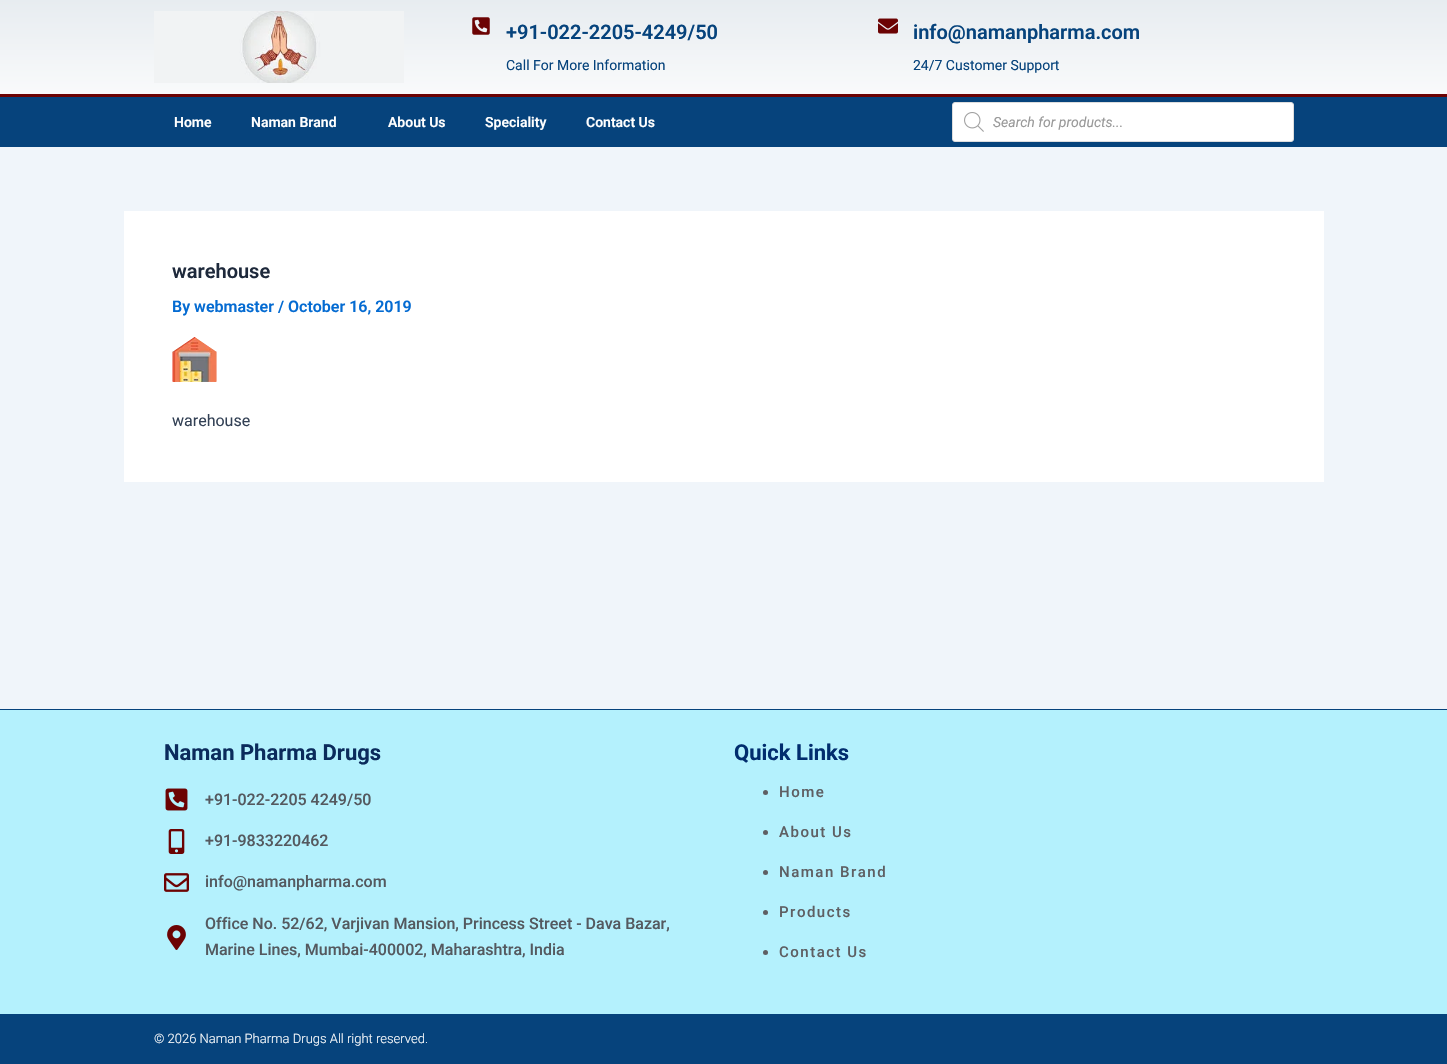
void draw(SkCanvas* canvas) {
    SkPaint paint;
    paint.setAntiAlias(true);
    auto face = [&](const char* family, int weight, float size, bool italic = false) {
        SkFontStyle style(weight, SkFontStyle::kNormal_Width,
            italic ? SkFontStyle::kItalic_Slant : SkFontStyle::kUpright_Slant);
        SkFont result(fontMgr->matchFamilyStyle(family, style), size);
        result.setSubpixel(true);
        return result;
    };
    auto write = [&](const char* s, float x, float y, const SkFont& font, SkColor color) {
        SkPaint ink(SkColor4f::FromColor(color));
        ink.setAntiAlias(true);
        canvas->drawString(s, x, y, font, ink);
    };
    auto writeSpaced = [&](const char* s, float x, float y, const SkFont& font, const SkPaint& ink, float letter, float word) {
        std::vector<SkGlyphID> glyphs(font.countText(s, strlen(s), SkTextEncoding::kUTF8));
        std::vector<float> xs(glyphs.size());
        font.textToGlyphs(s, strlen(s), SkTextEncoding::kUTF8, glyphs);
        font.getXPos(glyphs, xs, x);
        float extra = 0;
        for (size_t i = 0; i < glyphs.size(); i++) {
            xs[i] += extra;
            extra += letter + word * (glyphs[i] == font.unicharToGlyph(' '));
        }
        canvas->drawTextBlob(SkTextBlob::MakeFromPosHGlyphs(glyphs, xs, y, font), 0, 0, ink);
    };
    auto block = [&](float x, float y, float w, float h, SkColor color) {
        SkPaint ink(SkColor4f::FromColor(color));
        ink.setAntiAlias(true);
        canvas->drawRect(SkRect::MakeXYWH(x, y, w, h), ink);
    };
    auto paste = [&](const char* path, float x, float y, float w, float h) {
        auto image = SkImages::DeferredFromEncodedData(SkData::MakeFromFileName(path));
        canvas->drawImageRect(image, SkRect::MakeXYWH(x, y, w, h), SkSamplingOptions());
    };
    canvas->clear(SkColorSetRGB(240, 245, 250));
    {
        const SkColor colors[] = {SkColorSetRGB(225, 231, 236), SK_ColorWHITE};
        const float stops[] = {0, 1};
        const SkPoint ends[] = {{724, -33}, {724, 127}};
        paint.setShader(SkGradientShader::MakeLinear(ends, colors, stops, 2, SkTileMode::kClamp));
        paint.setAlpha(255);
    }
    canvas->drawRect(SkRect::MakeXYWH(0, 0, 1447, 94), paint);
    paste("pic1.png", 154, 11, 250, 72);
    paste("pic2.png", 472, 17, 18, 18);
    auto kFont1 = face("Roboto", 600, 20);
    write("+91-022-2205-4249/50", 506, 39, kFont1, SkColorSetRGB(6, 67, 124));
    auto kFont2 = face("Roboto", 400, 14);
    write("Call For More Information", 506, 70, kFont2, SkColorSetRGB(6, 67, 124));
    paste("pic3.png", 878, 18, 20, 16);
    write("info@namanpharma.com", 913, 39, kFont1, SkColorSetRGB(6, 67, 124));
    write("24/7 Customer Support", 913, 70, kFont2, SkColorSetRGB(6, 67, 124));
    block(0, 97, 1447, 50, SkColorSetRGB(6, 67, 124));
    block(0, 94, 1447, 3, SkColorSetRGB(108, 3, 3));
    auto kFont3 = face("Roboto", 600, 14);
    write("Home", 174, 127, kFont3, SK_ColorWHITE);
    write("Naman Brand", 251, 127, kFont3, SK_ColorWHITE);
    write("About Us", 388, 127, kFont3, SK_ColorWHITE);
    write("Speciality", 485, 127, kFont3, SK_ColorWHITE);
    write("Contact Us", 586, 127, kFont3, SK_ColorWHITE);
    paint.setShader(nullptr);
    paint.setColor(SK_ColorWHITE);
    canvas->drawRoundRect(SkRect::MakeXYWH(952.5f, 102.5f, 341, 39), 2.5f, 2.5f, paint);
    paint.setStyle(SkPaint::kStroke_Style);
    paint.setStrokeWidth(1);
    paint.setColor(SkColorSetRGB(221, 221, 221));
    canvas->drawRoundRect(SkRect::MakeXYWH(952.5f, 102.5f, 341, 39), 2.5f, 2.5f, paint);
    paste("pic4.png", 964, 112, 20, 20);
    auto kFont4 = face("Roboto", 400, 14, true);
    write("Search for products...", 993, 127, kFont4, SkColorSetRGB(153, 153, 153));
    block(124, 211, 1200, 271, SK_ColorWHITE);
    write("warehouse", 172, 278, kFont1, SkColorSetRGB(30, 41, 59));
    auto kFont5 = face("Roboto", 600, 16);
    write("By webmaster / October 16, 2019", 172, 312, kFont5, SkColorSetRGB(4, 107, 210));
    paste("pic5.png", 172, 337, 45, 45);
    auto kFont6 = face("Roboto", 400, 16);
    write("warehouse", 172, 426, kFont6, SkColorSetRGB(51, 65, 85));
    block(0, 710, 1447, 304, SkColorSetRGB(180, 241, 253));
    block(0, 709, 1447, 1, SkColorSetRGB(6, 67, 124));
    auto kFont7 = face("Roboto", 700, 22);
    write("Naman Pharma Drugs", 164, 760, kFont7, SkColorSetRGB(11, 43, 92));
    paste("pic6.png", 165, 788, 23, 23);
    auto kFont8 = face("Roboto", 500, 16);
    write("+91-022-2205 4249/50", 205, 805, kFont8, SkColorSetRGB(84, 89, 95));
    paste("pic7.png", 168, 829, 17, 25);
    write("+91-9833220462", 205, 846, kFont8, SkColorSetRGB(84, 89, 95));
    paste("pic8.png", 164, 873, 25, 19);
    write("info@namanpharma.com", 205, 887, kFont8, SkColorSetRGB(84, 89, 95));
    paste("pic9.png", 167, 925, 19, 25);
    write("Office No. 52/62, Varjivan Mansion, Princess Street - Dava Bazar,", 205, 929, kFont8, SkColorSetRGB(84, 89, 95));
    write("Marine Lines, Mumbai-400002, Maharashtra, India", 205, 955, kFont8, SkColorSetRGB(84, 89, 95));
    write("Quick Links", 734, 760, kFont7, SkColorSetRGB(1, 45, 110));
    paint.setStyle(SkPaint::kFill_Style);
    paint.setColor(SkColorSetRGB(94, 95, 99));
    canvas->drawCircle(765.5f, 792.5f, 2.5f, paint);
    auto kFont9 = face("Roboto", 500, 15);
    writeSpaced("Home", 779, 797, kFont9, paint, 1.5f, 0);
    canvas->drawCircle(765.5f, 832.5f, 2.5f, paint);
    writeSpaced("About Us", 779, 837, kFont9, paint, 1.5f, 0);
    canvas->drawCircle(765.5f, 872.5f, 2.5f, paint);
    writeSpaced("Naman Brand", 779, 877, kFont9, paint, 1.5f, 0);
    canvas->drawCircle(765.5f, 912.5f, 2.5f, paint);
    writeSpaced("Products", 779, 917, kFont9, paint, 1.5f, 0);
    canvas->drawCircle(765.5f, 952.5f, 2.5f, paint);
    writeSpaced("Contact Us", 779, 957, kFont9, paint, 1.5f, 0);
    block(0, 1014, 1447, 50, SkColorSetRGB(6, 67, 124));
    auto kFont10 = face("Roboto", 300, 13);
    write("© 2026 Naman Pharma Drugs All right reserved.", 154, 1043, kFont10, SK_ColorWHITE);
}
